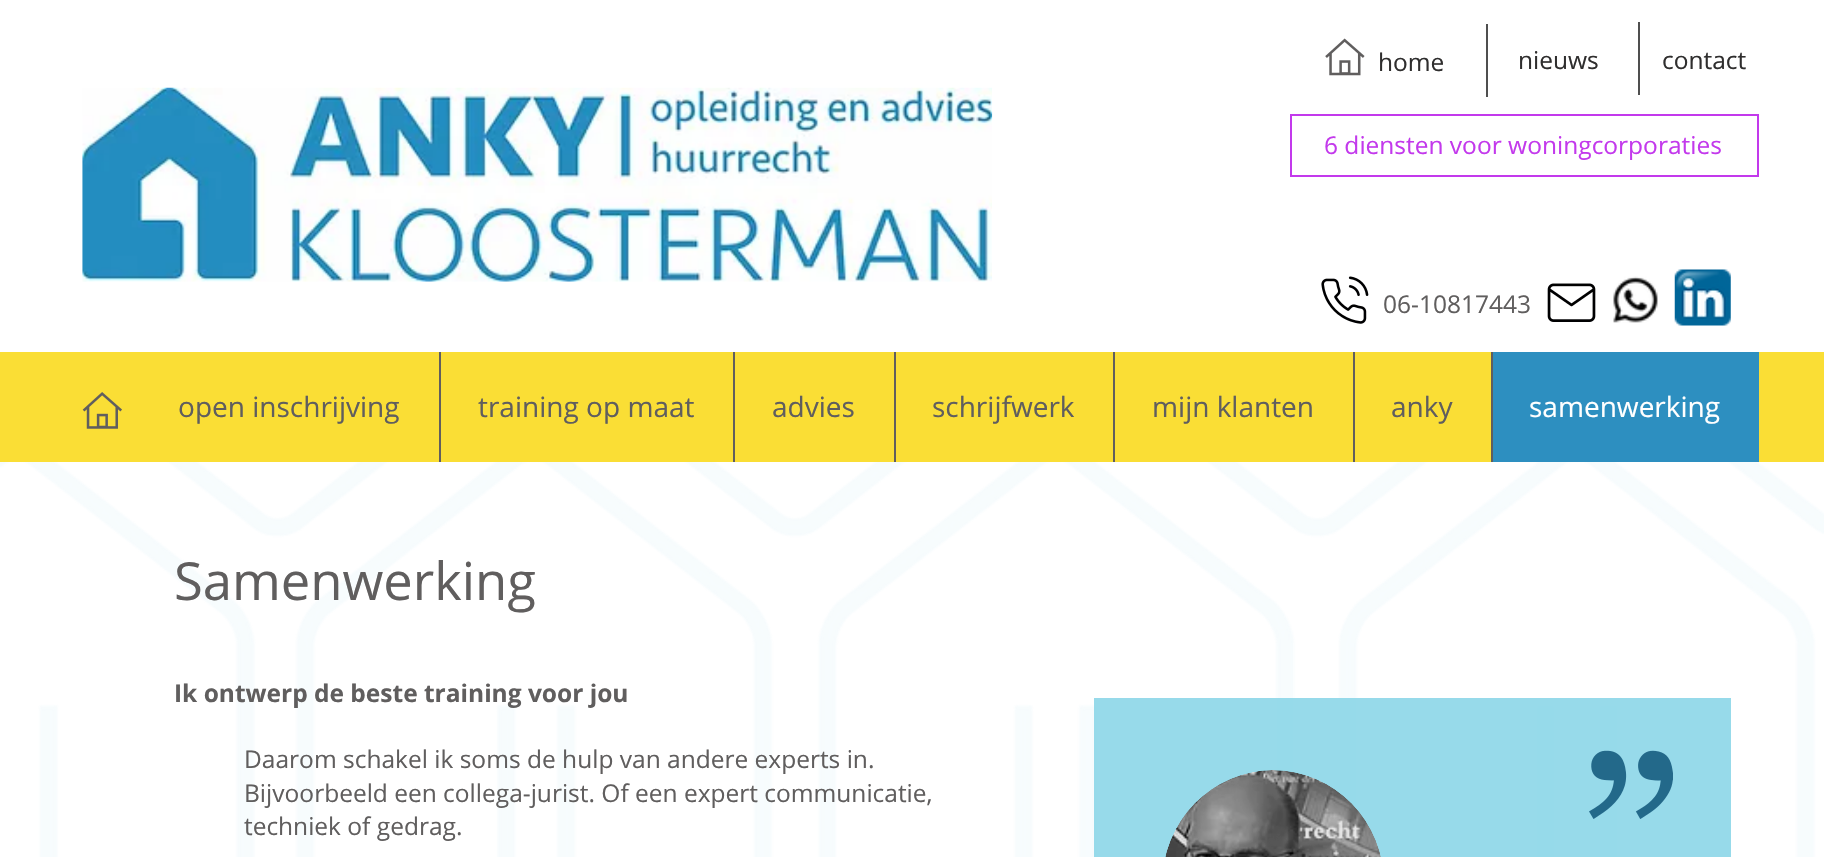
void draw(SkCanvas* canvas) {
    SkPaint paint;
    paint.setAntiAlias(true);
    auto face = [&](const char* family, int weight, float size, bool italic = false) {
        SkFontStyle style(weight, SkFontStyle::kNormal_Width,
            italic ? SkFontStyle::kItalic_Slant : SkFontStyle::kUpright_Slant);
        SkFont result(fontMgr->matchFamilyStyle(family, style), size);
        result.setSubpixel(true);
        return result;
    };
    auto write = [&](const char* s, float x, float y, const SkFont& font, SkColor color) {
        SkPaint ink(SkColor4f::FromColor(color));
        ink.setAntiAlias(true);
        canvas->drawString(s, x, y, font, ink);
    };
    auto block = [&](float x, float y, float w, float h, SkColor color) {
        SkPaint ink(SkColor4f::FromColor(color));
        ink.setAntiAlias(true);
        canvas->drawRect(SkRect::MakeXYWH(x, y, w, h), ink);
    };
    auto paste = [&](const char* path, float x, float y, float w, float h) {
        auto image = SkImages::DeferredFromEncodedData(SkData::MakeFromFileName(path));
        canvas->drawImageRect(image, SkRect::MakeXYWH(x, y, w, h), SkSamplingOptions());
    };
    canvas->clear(SK_ColorWHITE);
    paste("pic1.png", 1325, 38, 40, 38);
    auto kFont1 = face("Open Sans", 400, 24.5f);
    write("home", 1378, 71, kFont1, SkColorSetRGB(47, 46, 46));
    block(1486, 24, 2, 73, SkColorSetRGB(79, 79, 79));
    write("nieuws", 1518, 69, kFont1, SkColorSetRGB(47, 46, 46));
    block(1638, 22, 2, 73, SkColorSetRGB(79, 79, 79));
    write("contact", 1662, 69, kFont1, SkColorSetRGB(47, 46, 46));
    paste("pic2.png", 82, 87, 911, 195);
    paint.setStyle(SkPaint::kStroke_Style);
    paint.setStrokeWidth(2);
    paint.setColor(SkColorSetRGB(195, 57, 236));
    canvas->drawRect(SkRect::MakeXYWH(1291, 115, 467, 61), paint);
    write("6 diensten voor woningcorporaties", 1324, 154, kFont1, SkColorSetRGB(195, 57, 236));
    paste("pic3.png", 1321, 276, 48, 48);
    paste("pic4.png", 1547, 283, 49, 39);
    paste("pic5.png", 1613, 276, 45, 47);
    paste("pic6.png", 1674, 269, 57, 57);
    block(0, 352, 1824, 110, SkColorSetRGB(250, 222, 53));
    paste("pic7.png", 82, 392, 40, 37);
    auto kFont2 = face("Open Sans", 400, 28);
    write("open inschrijving", 178, 417, kFont2, SkColorSetRGB(96, 94, 94));
    block(439, 352, 2, 110, SkColorSetRGB(96, 94, 94));
    write("training op maat", 478, 417, kFont2, SkColorSetRGB(96, 94, 94));
    block(733, 352, 2, 110, SkColorSetRGB(96, 94, 94));
    write("advies", 772, 417, kFont2, SkColorSetRGB(96, 94, 94));
    block(894, 352, 2, 110, SkColorSetRGB(96, 94, 94));
    write("schrijfwerk", 932, 417, kFont2, SkColorSetRGB(96, 94, 94));
    block(1113, 352, 2, 110, SkColorSetRGB(96, 94, 94));
    write("mijn klanten", 1152, 417, kFont2, SkColorSetRGB(96, 94, 94));
    block(1353, 352, 2, 110, SkColorSetRGB(96, 94, 94));
    write("anky", 1391, 417, kFont2, SkColorSetRGB(96, 94, 94));
    block(1493, 352, 266, 110, SkColorSetRGB(45, 143, 192));
    block(1491, 352, 2, 110, SkColorSetRGB(96, 94, 94));
    write("samenwerking", 1529, 417, kFont2, SK_ColorWHITE);
    write("06-10817443", 1383, 313, kFont1, SkColorSetRGB(96, 94, 94));
    paste("pic10.png", 0, 462, 1824, 395);
    auto kFont3 = face("Open Sans", 400, 52.5f);
    write("Samenwerking", 174, 600, kFont3, SkColorSetRGB(96, 94, 94));
    auto kFont4 = face("Open Sans", 700, 24.5f);
    write("Ik ontwerp de beste training voor jou", 174, 702, kFont4, SkColorSetRGB(96, 94, 94));
    write("Daarom schakel ik soms de hulp van andere experts in.", 244, 768, kFont1, SkColorSetRGB(96, 94, 94));
    write("Bijvoorbeeld een collega-jurist. Of een expert communicatie,", 244, 802, kFont1, SkColorSetRGB(96, 94, 94));
    write("techniek of gedrag.", 244, 835, kFont1, SkColorSetRGB(96, 94, 94));
    block(1094, 698, 637, 159, SkColorSetARGB(217, 133, 211, 230));
    paste("pic8.png", 1165, 770, 216, 87);
    paste("pic9.png", 1589, 750, 84, 69);
}
